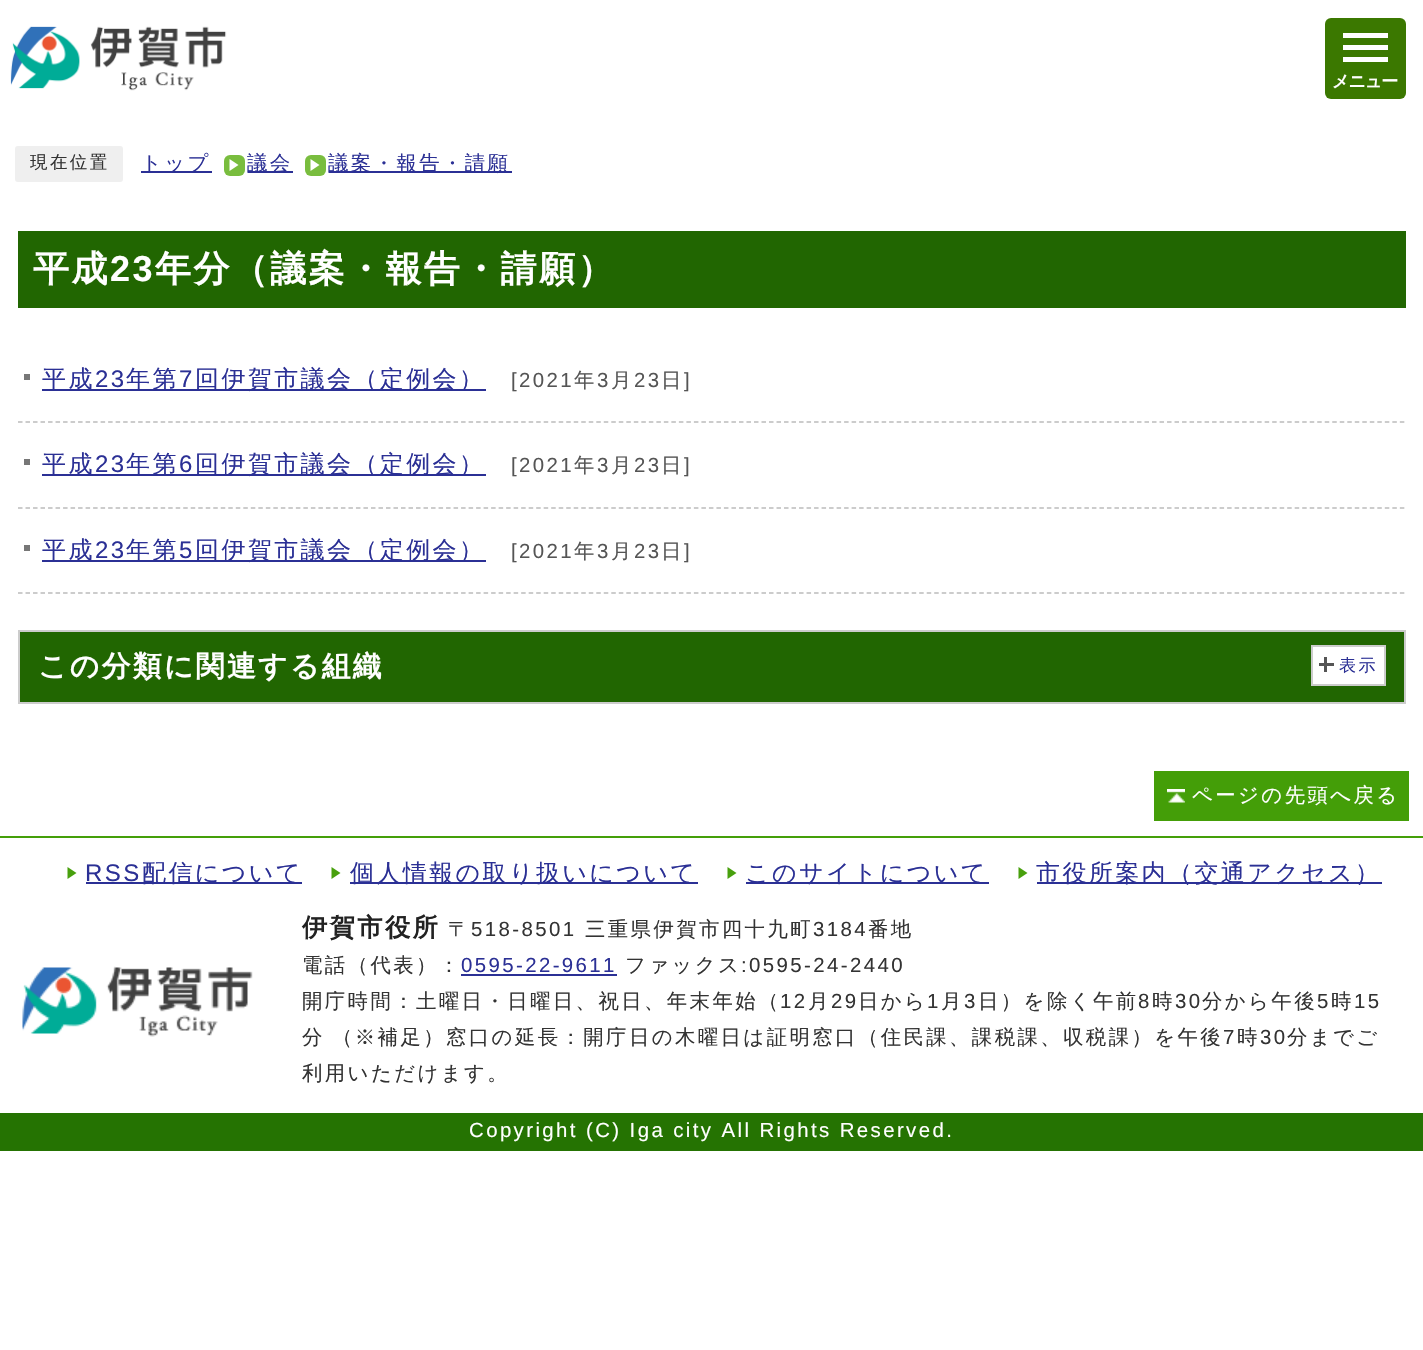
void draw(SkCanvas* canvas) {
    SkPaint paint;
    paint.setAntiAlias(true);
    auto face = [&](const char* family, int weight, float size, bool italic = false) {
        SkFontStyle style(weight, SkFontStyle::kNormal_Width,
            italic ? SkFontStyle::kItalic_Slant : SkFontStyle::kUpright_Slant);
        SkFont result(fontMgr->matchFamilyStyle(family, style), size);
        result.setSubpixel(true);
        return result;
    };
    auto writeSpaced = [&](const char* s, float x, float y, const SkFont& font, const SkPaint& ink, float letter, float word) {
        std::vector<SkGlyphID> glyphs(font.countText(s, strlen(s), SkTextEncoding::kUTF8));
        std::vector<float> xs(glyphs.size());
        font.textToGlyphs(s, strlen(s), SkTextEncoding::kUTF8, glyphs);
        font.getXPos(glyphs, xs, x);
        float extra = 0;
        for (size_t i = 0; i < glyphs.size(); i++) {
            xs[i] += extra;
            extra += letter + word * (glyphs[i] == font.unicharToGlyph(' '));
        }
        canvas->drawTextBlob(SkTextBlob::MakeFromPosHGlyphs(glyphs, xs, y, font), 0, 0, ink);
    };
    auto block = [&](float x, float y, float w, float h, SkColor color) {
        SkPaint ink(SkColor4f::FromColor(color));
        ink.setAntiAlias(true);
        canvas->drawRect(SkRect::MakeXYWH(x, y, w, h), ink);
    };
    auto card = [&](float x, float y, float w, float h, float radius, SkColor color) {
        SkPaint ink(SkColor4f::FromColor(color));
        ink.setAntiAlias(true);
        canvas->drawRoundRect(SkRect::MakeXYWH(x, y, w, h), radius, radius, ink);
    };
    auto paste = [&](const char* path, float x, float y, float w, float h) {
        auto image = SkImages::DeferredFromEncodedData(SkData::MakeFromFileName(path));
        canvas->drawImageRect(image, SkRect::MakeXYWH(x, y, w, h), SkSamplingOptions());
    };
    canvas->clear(SK_ColorWHITE);
    paste("pic1.png", 10, 26, 217, 65);
    card(1325, 18, 81, 81, 6, SkColorSetRGB(59, 120, 0));
    block(1343, 33, 45, 5, SK_ColorWHITE);
    block(1343, 45, 45, 5, SK_ColorWHITE);
    block(1343, 57, 45, 5, SK_ColorWHITE);
    auto kFont1 = face("WenQuanYi Zen Hei", 700, 17);
    paint.setColor(SK_ColorWHITE);
    writeSpaced("メニュー", 1332, 87, kFont1, paint, -1, 0);
    card(15, 146, 108, 36, 3, SkColorSetRGB(239, 239, 239));
    auto kFont2 = face("WenQuanYi Zen Hei", 500, 17.5f);
    paint.setColor(SkColorSetRGB(51, 51, 51));
    writeSpaced("現在位置", 30, 168, kFont2, paint, 2.4f, 0);
    block(141, 171, 71, 2, SkColorSetRGB(43, 48, 149));
    auto kFont3 = face("WenQuanYi Zen Hei", 500, 20.4f);
    paint.setColor(SkColorSetRGB(43, 48, 149));
    writeSpaced("トップ", 141, 170, kFont3, paint, 2.4f, 0);
    card(224, 155, 21, 21, 6, SkColorSetRGB(121, 189, 62));
    paint.setColor(SK_ColorWHITE);
    canvas->drawPath(SkPathBuilder().moveTo(229.5f, 171).lineTo(229.5f, 159).lineTo(238.5f, 165).close().detach(), paint);
    block(248, 171, 45, 2, SkColorSetRGB(43, 48, 149));
    paint.setColor(SkColorSetRGB(43, 48, 149));
    writeSpaced("議会", 247, 170, kFont3, paint, 2.4f, 0);
    card(305, 155, 21, 21, 6, SkColorSetRGB(121, 189, 62));
    paint.setColor(SK_ColorWHITE);
    canvas->drawPath(SkPathBuilder().moveTo(310.5f, 171).lineTo(310.5f, 159).lineTo(319.5f, 165).close().detach(), paint);
    block(329, 171, 183, 2, SkColorSetRGB(43, 48, 149));
    paint.setColor(SkColorSetRGB(43, 48, 149));
    writeSpaced("議案・報告・請願", 328, 170, kFont3, paint, 2.4f, 0);
    block(18, 231, 1388, 77, SkColorSetRGB(33, 102, 1));
    auto kFont4 = face("WenQuanYi Zen Hei", 700, 36);
    paint.setColor(SK_ColorWHITE);
    writeSpaced("平成", 33, 281, kFont4, paint, 2.4f, 0);
    auto kFont5 = face("Liberation Sans", 700, 36);
    writeSpaced("23", 110, 281, kFont5, paint, 2.4f, 0);
    writeSpaced("年分（議案・報告・請願）", 155, 281, kFont4, paint, 2.4f, 0);
    paint.setStyle(SkPaint::kStroke_Style);
    paint.setStrokeWidth(1.5f);
    paint.setColor(SkColorSetRGB(187, 187, 187));
    paint.setPathEffect(SkDashPathEffect::Make({{4.5f, 3.01f}}, 0));
    canvas->drawPath(SkPathBuilder().moveTo(18, 422).lineTo(1405.5f, 422).detach(), paint);
    paint.setPathEffect(nullptr);
    block(24, 374, 6, 6, SkColorSetRGB(119, 119, 119));
    block(42, 389, 444, 2, SkColorSetRGB(43, 48, 149));
    auto kFont6 = face("WenQuanYi Zen Hei", 500, 24);
    paint.setStyle(SkPaint::kFill_Style);
    paint.setColor(SkColorSetRGB(43, 48, 149));
    writeSpaced("平成", 42, 387, kFont6, paint, 2.4f, 0);
    auto kFont7 = face("Liberation Sans", 400, 24);
    writeSpaced("23", 95, 387, kFont7, paint, 2.4f, 0);
    writeSpaced("年第", 126, 387, kFont6, paint, 2.4f, 0);
    writeSpaced("7", 179, 387, kFont7, paint, 2.4f, 0);
    writeSpaced("回伊賀市議会（定例会）", 195, 387, kFont6, paint, 2.4f, 0);
    auto kFont8 = face("Liberation Sans", 400, 20.4f);
    paint.setColor(SkColorSetRGB(85, 85, 85));
    writeSpaced("[2021", 511, 387, kFont8, paint, 2.4f, 0);
    writeSpaced("年", 574, 387, kFont3, paint, 2.4f, 0);
    writeSpaced("3", 597, 387, kFont8, paint, 2.4f, 0);
    writeSpaced("月", 611, 387, kFont3, paint, 2.4f, 0);
    writeSpaced("23", 634, 387, kFont8, paint, 2.4f, 0);
    writeSpaced("日", 661, 387, kFont3, paint, 2.4f, 0);
    writeSpaced("]", 684, 387, kFont8, paint, 2.4f, 0);
    paint.setStyle(SkPaint::kStroke_Style);
    paint.setColor(SkColorSetRGB(187, 187, 187));
    paint.setPathEffect(SkDashPathEffect::Make({{4.5f, 3.01f}}, 0));
    canvas->drawPath(SkPathBuilder().moveTo(18, 508).lineTo(1405.5f, 508).detach(), paint);
    paint.setPathEffect(nullptr);
    block(24, 459, 6, 6, SkColorSetRGB(119, 119, 119));
    block(42, 474, 444, 2, SkColorSetRGB(43, 48, 149));
    paint.setStyle(SkPaint::kFill_Style);
    paint.setColor(SkColorSetRGB(43, 48, 149));
    writeSpaced("平成", 42, 472, kFont6, paint, 2.4f, 0);
    writeSpaced("23", 95, 472, kFont7, paint, 2.4f, 0);
    writeSpaced("年第", 126, 472, kFont6, paint, 2.4f, 0);
    writeSpaced("6", 179, 472, kFont7, paint, 2.4f, 0);
    writeSpaced("回伊賀市議会（定例会）", 195, 472, kFont6, paint, 2.4f, 0);
    paint.setColor(SkColorSetRGB(85, 85, 85));
    writeSpaced("[2021", 511, 472, kFont8, paint, 2.4f, 0);
    writeSpaced("年", 574, 472, kFont3, paint, 2.4f, 0);
    writeSpaced("3", 597, 472, kFont8, paint, 2.4f, 0);
    writeSpaced("月", 611, 472, kFont3, paint, 2.4f, 0);
    writeSpaced("23", 634, 472, kFont8, paint, 2.4f, 0);
    writeSpaced("日", 661, 472, kFont3, paint, 2.4f, 0);
    writeSpaced("]", 684, 472, kFont8, paint, 2.4f, 0);
    paint.setStyle(SkPaint::kStroke_Style);
    paint.setColor(SkColorSetRGB(187, 187, 187));
    paint.setPathEffect(SkDashPathEffect::Make({{4.5f, 3.01f}}, 0));
    canvas->drawPath(SkPathBuilder().moveTo(18, 593).lineTo(1405.5f, 593).detach(), paint);
    paint.setPathEffect(nullptr);
    block(24, 545, 6, 6, SkColorSetRGB(119, 119, 119));
    block(42, 560, 444, 2, SkColorSetRGB(43, 48, 149));
    paint.setStyle(SkPaint::kFill_Style);
    paint.setColor(SkColorSetRGB(43, 48, 149));
    writeSpaced("平成", 42, 558, kFont6, paint, 2.4f, 0);
    writeSpaced("23", 95, 558, kFont7, paint, 2.4f, 0);
    writeSpaced("年第", 126, 558, kFont6, paint, 2.4f, 0);
    writeSpaced("5", 179, 558, kFont7, paint, 2.4f, 0);
    writeSpaced("回伊賀市議会（定例会）", 195, 558, kFont6, paint, 2.4f, 0);
    paint.setColor(SkColorSetRGB(85, 85, 85));
    writeSpaced("[2021", 511, 558, kFont8, paint, 2.4f, 0);
    writeSpaced("年", 574, 558, kFont3, paint, 2.4f, 0);
    writeSpaced("3", 597, 558, kFont8, paint, 2.4f, 0);
    writeSpaced("月", 611, 558, kFont3, paint, 2.4f, 0);
    writeSpaced("23", 634, 558, kFont8, paint, 2.4f, 0);
    writeSpaced("日", 661, 558, kFont3, paint, 2.4f, 0);
    writeSpaced("]", 684, 558, kFont8, paint, 2.4f, 0);
    paint.setStyle(SkPaint::kStroke_Style);
    paint.setStrokeWidth(2);
    paint.setColor(SkColorSetRGB(204, 204, 204));
    canvas->drawRect(SkRect::MakeXYWH(19, 631, 1386, 72), paint);
    block(20, 632, 1384, 70, SkColorSetRGB(33, 102, 1));
    auto kFont9 = face("WenQuanYi Zen Hei", 700, 28.75f);
    paint.setStyle(SkPaint::kFill_Style);
    paint.setColor(SK_ColorWHITE);
    writeSpaced("この分類に関連する組織", 38, 676, kFont9, paint, 2.4f, 0);
    canvas->drawRect(SkRect::MakeXYWH(1312, 646, 73, 39), paint);
    paint.setStyle(SkPaint::kStroke_Style);
    paint.setColor(SkColorSetRGB(204, 204, 204));
    canvas->drawRect(SkRect::MakeXYWH(1312, 646, 73, 39), paint);
    block(1319, 663, 15, 3, SkColorSetRGB(85, 85, 85));
    block(1324, 657, 3, 15, SkColorSetRGB(85, 85, 85));
    auto kFont10 = face("WenQuanYi Zen Hei", 500, 17);
    paint.setStyle(SkPaint::kFill_Style);
    paint.setColor(SkColorSetRGB(43, 48, 149));
    writeSpaced("表示", 1339, 671, kFont10, paint, 2.4f, 0);
    block(1154, 771, 255, 50, SkColorSetRGB(68, 158, 8));
    paste("pic2.png", 1167, 789, 18, 14);
    paint.setColor(SK_ColorWHITE);
    writeSpaced("ページの先頭へ戻る", 1192, 802, kFont3, paint, 2.4f, 0);
    block(0, 836, 1423, 2, SkColorSetRGB(68, 159, 9));
    paint.setColor(SkColorSetRGB(72, 160, 13));
    canvas->drawPath(SkPathBuilder().moveTo(67.5f, 879).lineTo(67.5f, 867).lineTo(76.5f, 873).close().detach(), paint);
    paint.setColor(SkColorSetRGB(43, 48, 149));
    writeSpaced("RSS", 85, 881, kFont7, paint, 2.4f, 0);
    block(86, 882, 216, 2, SkColorSetRGB(43, 48, 149));
    writeSpaced("配信について", 142, 881, kFont6, paint, 2.4f, 0);
    paint.setColor(SkColorSetRGB(72, 160, 13));
    canvas->drawPath(SkPathBuilder().moveTo(331.5f, 879).lineTo(331.5f, 867).lineTo(340.5f, 873).close().detach(), paint);
    block(350, 882, 348, 2, SkColorSetRGB(43, 48, 149));
    paint.setColor(SkColorSetRGB(43, 48, 149));
    writeSpaced("個人情報の取り扱いについて", 350, 881, kFont6, paint, 2.4f, 0);
    paint.setColor(SkColorSetRGB(72, 160, 13));
    canvas->drawPath(SkPathBuilder().moveTo(727.5f, 879).lineTo(727.5f, 867).lineTo(736.5f, 873).close().detach(), paint);
    block(746, 882, 243, 2, SkColorSetRGB(43, 48, 149));
    paint.setColor(SkColorSetRGB(43, 48, 149));
    writeSpaced("このサイトについて", 745, 881, kFont6, paint, 2.4f, 0);
    paint.setColor(SkColorSetRGB(72, 160, 13));
    canvas->drawPath(SkPathBuilder().moveTo(1018.5f, 879).lineTo(1018.5f, 867).lineTo(1027.5f, 873).close().detach(), paint);
    block(1037, 882, 345, 2, SkColorSetRGB(43, 48, 149));
    paint.setColor(SkColorSetRGB(43, 48, 149));
    writeSpaced("市役所案内（交通アクセス）", 1036, 881, kFont6, paint, 2.4f, 0);
    paste("pic3.png", 22, 966, 231, 71);
    auto kFont11 = face("WenQuanYi Zen Hei", 700, 25.25f);
    paint.setColor(SkColorSetRGB(34, 34, 34));
    writeSpaced("伊賀市役所", 302, 936, kFont11, paint, 2.4f, 0);
    paint.setColor(SkColorSetRGB(51, 51, 51));
    writeSpaced("〒", 448, 936, kFont3, paint, 2.4f, 0);
    writeSpaced("518-8501", 471, 936, kFont8, paint, 2.4f, 0);
    writeSpaced("三重県伊賀市四十九町", 585, 936, kFont3, paint, 2.4f, 0);
    writeSpaced("3184", 813, 936, kFont8, paint, 2.4f, 0);
    writeSpaced("番地", 868, 936, kFont3, paint, 2.4f, 0);
    writeSpaced("電話（代表）：", 302, 972, kFont3, paint, 2.4f, 0);
    paint.setColor(SkColorSetRGB(43, 48, 149));
    writeSpaced("0595-22-9611", 461, 972, kFont8, paint, 2.4f, 0);
    block(461, 974, 156, 2, SkColorSetRGB(43, 48, 149));
    paint.setColor(SkColorSetRGB(51, 51, 51));
    writeSpaced("ファックス", 625, 972, kFont3, paint, 2.4f, 0);
    writeSpaced(":0595-24-2440", 741, 972, kFont8, paint, 2.4f, 0);
    writeSpaced("開庁時間：土曜日・日曜日、祝日、年末年始（", 302, 1008, kFont3, paint, 2.4f, 0);
    writeSpaced("12", 780, 1008, kFont8, paint, 2.4f, 0);
    writeSpaced("月", 808, 1008, kFont3, paint, 2.4f, 0);
    writeSpaced("29", 831, 1008, kFont8, paint, 2.4f, 0);
    writeSpaced("日から", 858, 1008, kFont3, paint, 2.4f, 0);
    writeSpaced("1", 927, 1008, kFont8, paint, 2.4f, 0);
    writeSpaced("月", 941, 1008, kFont3, paint, 2.4f, 0);
    writeSpaced("3", 964, 1008, kFont8, paint, 2.4f, 0);
    writeSpaced("日）を除く午前", 978, 1008, kFont3, paint, 2.4f, 0);
    writeSpaced("8", 1138, 1008, kFont8, paint, 2.4f, 0);
    writeSpaced("時", 1152, 1008, kFont3, paint, 2.4f, 0);
    writeSpaced("30", 1175, 1008, kFont8, paint, 2.4f, 0);
    writeSpaced("分から午後", 1202, 1008, kFont3, paint, 2.4f, 0);
    writeSpaced("5", 1317, 1008, kFont8, paint, 2.4f, 0);
    writeSpaced("時", 1331, 1008, kFont3, paint, 2.4f, 0);
    writeSpaced("15", 1354, 1008, kFont8, paint, 2.4f, 0);
    writeSpaced("分", 302, 1044, kFont3, paint, 2.4f, 0);
    writeSpaced("（※補足）窓口の延長：開庁日の木曜日は証明窓口（住民課、課税課、収税課）を午後", 332, 1044, kFont3, paint, 2.4f, 0);
    writeSpaced("7", 1223, 1044, kFont8, paint, 2.4f, 0);
    writeSpaced("時", 1237, 1044, kFont3, paint, 2.4f, 0);
    writeSpaced("30", 1260, 1044, kFont8, paint, 2.4f, 0);
    writeSpaced("分までご", 1287, 1044, kFont3, paint, 2.4f, 0);
    writeSpaced("利用いただけます。", 302, 1080, kFont3, paint, 2.4f, 0);
    block(0, 1113, 1423, 38, SkColorSetRGB(37, 115, 2));
    paint.setColor(SK_ColorWHITE);
    writeSpaced("Copyright (C) Iga city All Rights Reserved.", 469, 1137, kFont8, paint, 2.4f, 0);
}
